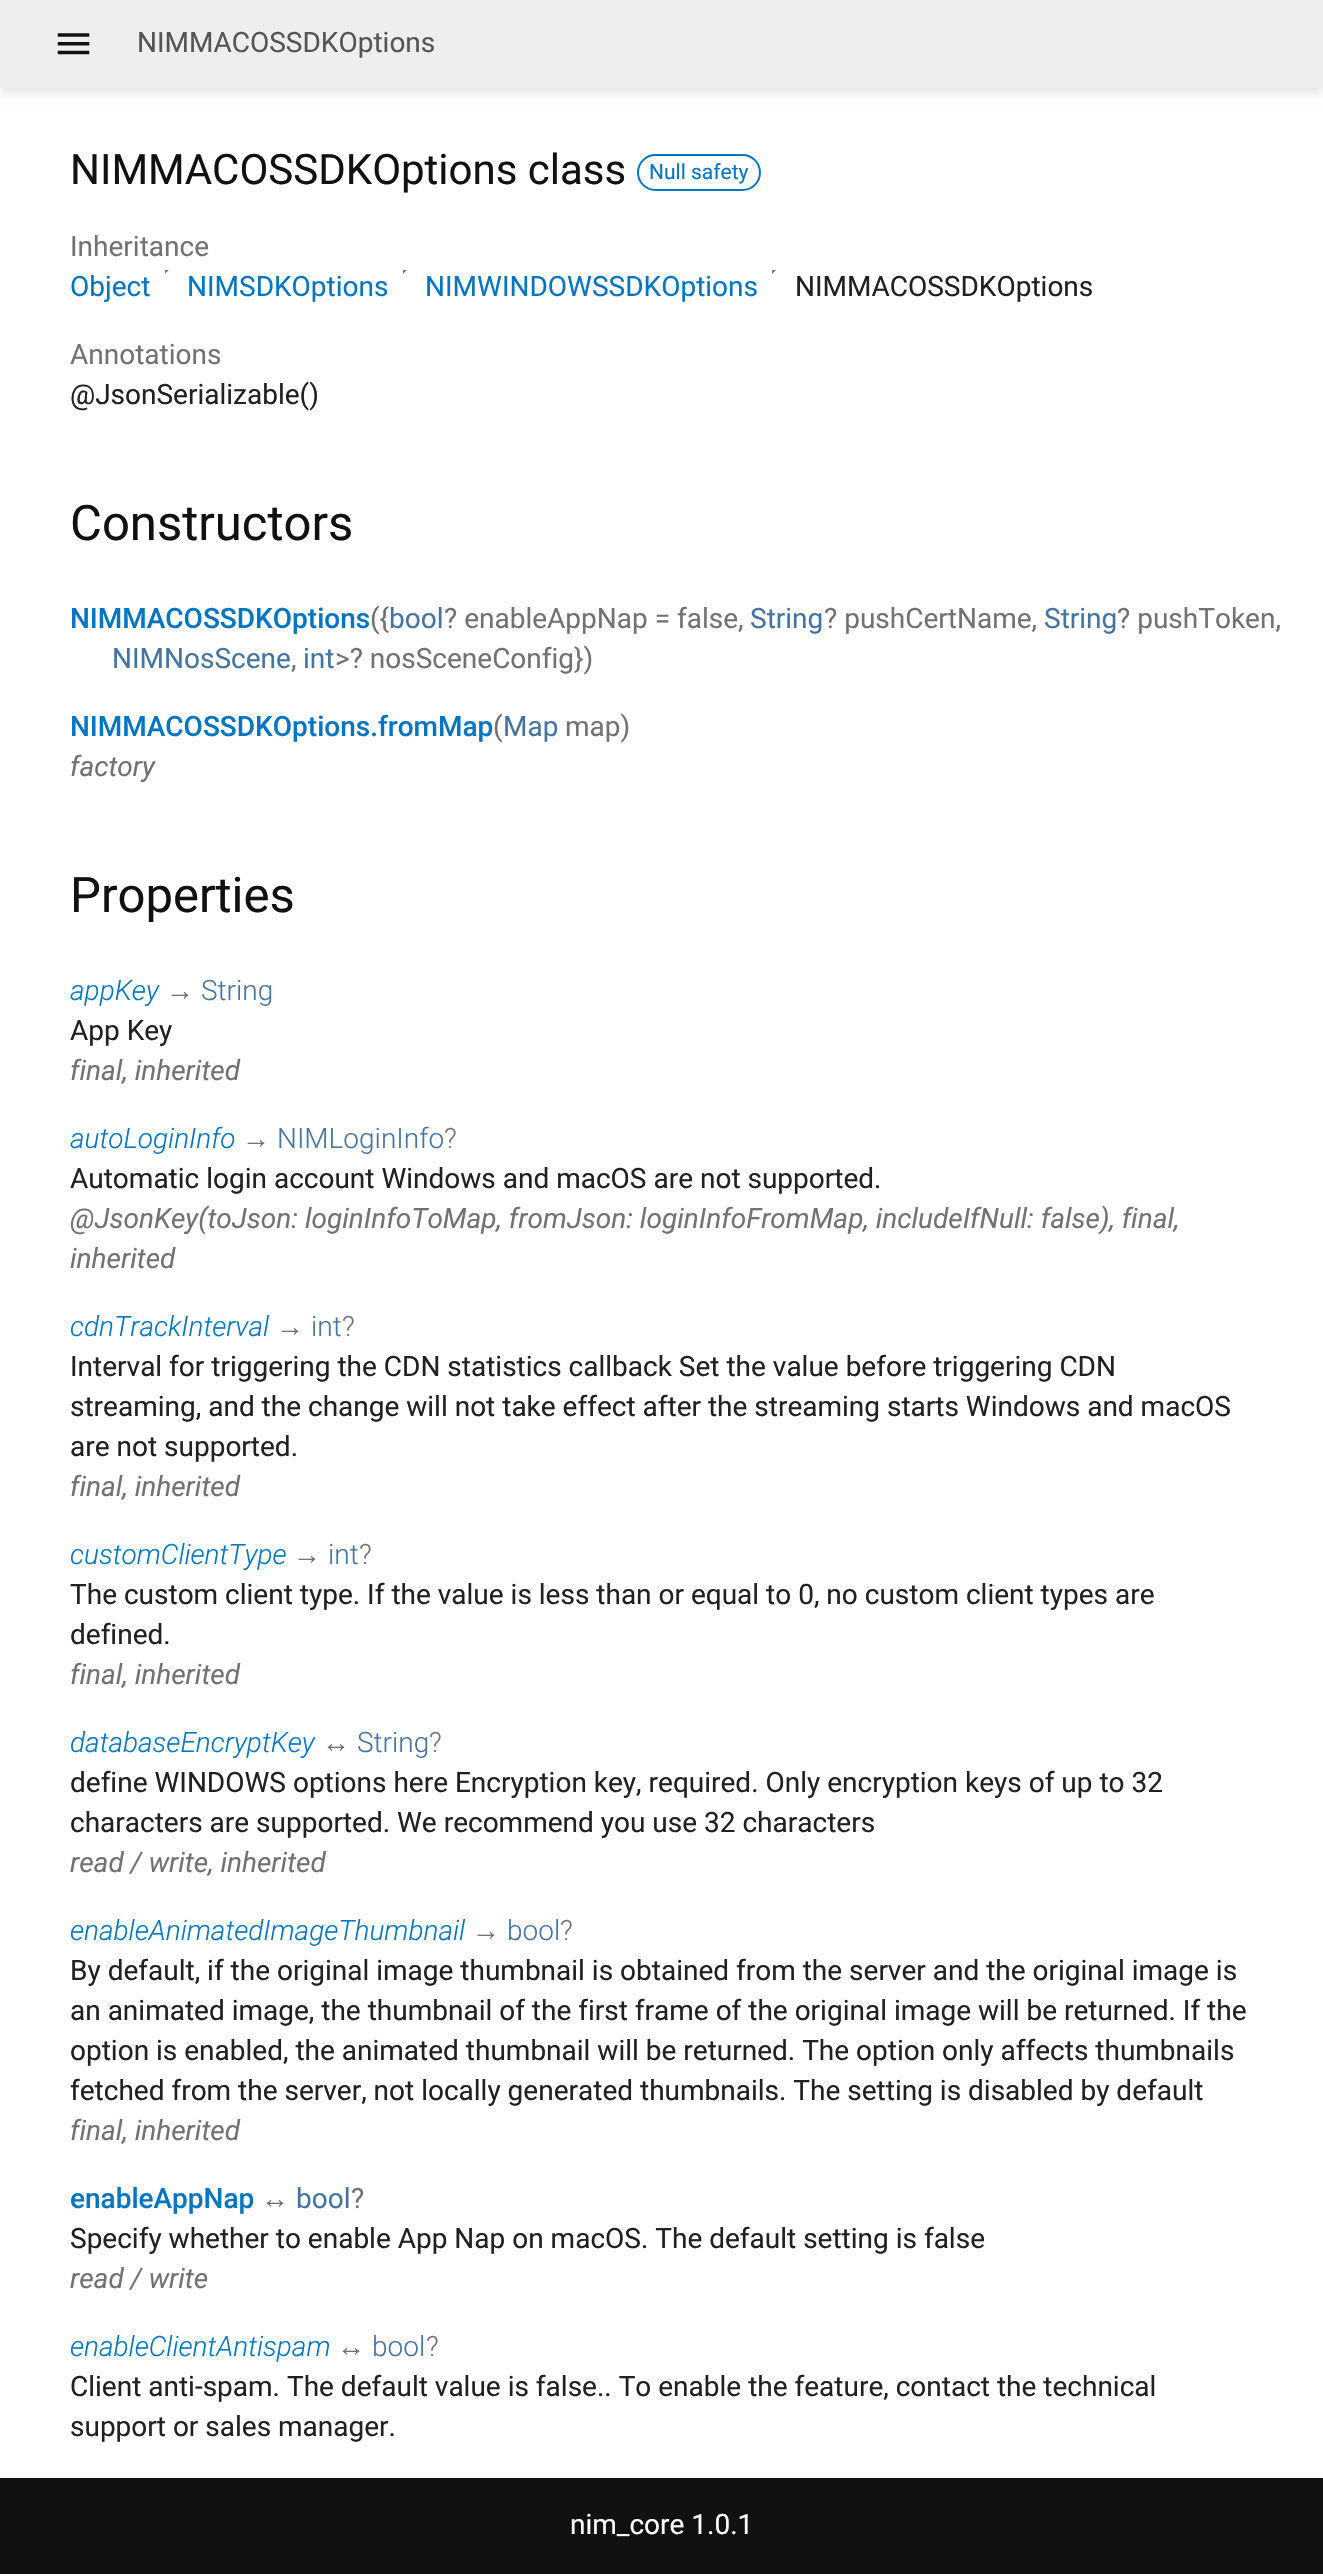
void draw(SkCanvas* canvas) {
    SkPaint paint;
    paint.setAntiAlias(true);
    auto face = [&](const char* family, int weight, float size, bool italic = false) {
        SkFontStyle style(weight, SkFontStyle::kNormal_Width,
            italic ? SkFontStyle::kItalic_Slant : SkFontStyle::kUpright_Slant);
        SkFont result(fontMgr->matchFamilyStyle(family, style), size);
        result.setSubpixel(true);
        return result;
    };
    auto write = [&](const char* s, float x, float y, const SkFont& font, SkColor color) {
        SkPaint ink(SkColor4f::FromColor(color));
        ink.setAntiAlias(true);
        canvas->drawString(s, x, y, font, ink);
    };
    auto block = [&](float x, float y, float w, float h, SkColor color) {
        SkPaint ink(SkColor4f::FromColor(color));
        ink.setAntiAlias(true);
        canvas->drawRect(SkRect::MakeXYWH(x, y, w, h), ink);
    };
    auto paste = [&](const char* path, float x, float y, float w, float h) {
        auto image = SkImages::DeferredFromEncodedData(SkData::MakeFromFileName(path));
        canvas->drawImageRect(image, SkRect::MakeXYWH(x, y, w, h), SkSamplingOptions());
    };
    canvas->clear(SK_ColorWHITE);
    paint.setColor(SkColorSetARGB(26, 0, 0, 0));
    paint.setMaskFilter(SkMaskFilter::MakeBlur(kNormal_SkBlurStyle, 4.5f));
    canvas->drawRect(SkRect::MakeXYWH(0, 5, 1323, 88), paint);
    paint.setMaskFilter(nullptr);
    block(0, 0, 1323, 88, SkColorSetRGB(238, 238, 238));
    paste("pic1.png", 57, 33, 33, 22);
    auto kFont1 = face("Roboto", 400, 28);
    write("NIMMACOSSDKOptions", 137, 52, kFont1, SkColorSetRGB(85, 85, 85));
    auto kFont2 = face("Roboto", 400, 42);
    write("NIMMACOSSDKOptions class", 70, 184, kFont2, SkColorSetRGB(17, 17, 17));
    paint.setStyle(SkPaint::kStroke_Style);
    paint.setStrokeWidth(2);
    paint.setColor(SkColorSetRGB(1, 117, 194));
    canvas->drawRoundRect(SkRect::MakeXYWH(638, 155, 122, 35), 17.5f, 17.5f, paint);
    auto kFont3 = face("Roboto", 400, 21);
    write("Null safety", 649, 179, kFont3, SkColorSetRGB(1, 117, 194));
    write("Inheritance", 70, 256, kFont1, SkColorSetRGB(114, 114, 114));
    write("Object", 70, 296, kFont1, SkColorSetRGB(1, 117, 194));
    paste("pic2.png", 165, 270, 4, 4);
    write("NIMSDKOptions", 187, 296, kFont1, SkColorSetRGB(1, 117, 194));
    paste("pic2.png", 403, 270, 4, 4);
    write("NIMWINDOWSSDKOptions", 425, 296, kFont1, SkColorSetRGB(1, 117, 194));
    paste("pic3.png", 772, 270, 4, 4);
    write("NIMMACOSSDKOptions", 795, 296, kFont1, SkColorSetRGB(33, 33, 33));
    write("Annotations", 70, 364, kFont1, SkColorSetRGB(114, 114, 114));
    write("@JsonSerializable()", 70, 404, kFont1, SkColorSetRGB(33, 33, 33));
    auto kFont4 = face("Roboto", 400, 49);
    write("Constructors", 70, 540, kFont4, SkColorSetRGB(17, 17, 17));
    auto kFont5 = face("Roboto", 500, 28);
    write("NIMMACOSSDKOptions", 70, 628, kFont5, SkColorSetRGB(1, 117, 194));
    write("({", 370, 628, kFont1, SkColorSetRGB(114, 114, 114));
    write("bool", 389, 628, kFont1, SkColorSetRGB(70, 116, 162));
    write("? enableAppNap = false,", 444, 628, kFont1, SkColorSetRGB(114, 114, 114));
    write("String", 750, 628, kFont1, SkColorSetRGB(70, 116, 162));
    write("? pushCertName,", 824, 628, kFont1, SkColorSetRGB(114, 114, 114));
    write("String", 1044, 628, kFont1, SkColorSetRGB(70, 116, 162));
    write("? pushToken,", 1117, 628, kFont1, SkColorSetRGB(114, 114, 114));
    write("NIMNosScene", 112, 668, kFont1, SkColorSetRGB(70, 116, 162));
    write(",", 291, 668, kFont1, SkColorSetRGB(114, 114, 114));
    write("int", 303, 668, kFont1, SkColorSetRGB(70, 116, 162));
    write(">? nosSceneConfig})", 335, 668, kFont1, SkColorSetRGB(114, 114, 114));
    write("NIMMACOSSDKOptions.fromMap", 70, 736, kFont5, SkColorSetRGB(1, 117, 194));
    write("(", 493, 736, kFont1, SkColorSetRGB(114, 114, 114));
    write("Map", 503, 736, kFont1, SkColorSetRGB(70, 116, 162));
    write("map)", 565, 736, kFont1, SkColorSetRGB(114, 114, 114));
    auto kFont6 = face("Roboto", 400, 28, true);
    write("factory", 70, 776, kFont6, SkColorSetRGB(114, 114, 114));
    write("Properties", 70, 912, kFont4, SkColorSetRGB(17, 17, 17));
    auto kFont7 = face("Roboto", 300, 28, true);
    write("appKey", 70, 1000, kFont7, SkColorSetRGB(1, 117, 194));
    auto kFont8 = face("Liberation Sans", 400, 28);
    write("→", 166, 1000, kFont8, SkColorSetRGB(114, 114, 114));
    auto kFont9 = face("Roboto", 300, 28);
    write("String", 201, 1000, kFont9, SkColorSetRGB(70, 116, 162));
    write("App Key", 70, 1040, kFont1, SkColorSetRGB(33, 33, 33));
    write("final, inherited", 70, 1080, kFont6, SkColorSetRGB(114, 114, 114));
    write("autoLoginInfo", 70, 1148, kFont7, SkColorSetRGB(1, 117, 194));
    write("→", 242, 1148, kFont8, SkColorSetRGB(114, 114, 114));
    write("NIMLoginInfo", 277, 1148, kFont9, SkColorSetRGB(70, 116, 162));
    write("?", 444, 1148, kFont9, SkColorSetRGB(114, 114, 114));
    write("Automatic login account Windows and macOS are not supported.", 70, 1188, kFont1, SkColorSetRGB(33, 33, 33));
    write("@JsonKey(toJson: loginInfoToMap, fromJson: loginInfoFromMap, includeIfNull: false), final,", 70, 1228, kFont6, SkColorSetRGB(114, 114, 114));
    write("inherited", 70, 1268, kFont6, SkColorSetRGB(114, 114, 114));
    write("cdnTrackInterval", 70, 1336, kFont7, SkColorSetRGB(1, 117, 194));
    write("→", 276, 1336, kFont8, SkColorSetRGB(114, 114, 114));
    write("int", 311, 1336, kFont9, SkColorSetRGB(70, 116, 162));
    write("?", 342, 1336, kFont9, SkColorSetRGB(114, 114, 114));
    write("Interval for triggering the CDN statistics callback Set the value before triggering CDN", 70, 1376, kFont1, SkColorSetRGB(33, 33, 33));
    write("streaming, and the change will not take effect after the streaming starts Windows and macOS", 70, 1416, kFont1, SkColorSetRGB(33, 33, 33));
    write("are not supported.", 70, 1456, kFont1, SkColorSetRGB(33, 33, 33));
    write("final, inherited", 70, 1496, kFont6, SkColorSetRGB(114, 114, 114));
    write("customClientType", 70, 1564, kFont7, SkColorSetRGB(1, 117, 194));
    write("→", 293, 1564, kFont8, SkColorSetRGB(114, 114, 114));
    write("int", 328, 1564, kFont9, SkColorSetRGB(70, 116, 162));
    write("?", 359, 1564, kFont9, SkColorSetRGB(114, 114, 114));
    write("The custom client type. If the value is less than or equal to 0, no custom client types are", 70, 1604, kFont1, SkColorSetRGB(33, 33, 33));
    write("defined.", 70, 1644, kFont1, SkColorSetRGB(33, 33, 33));
    write("final, inherited", 70, 1684, kFont6, SkColorSetRGB(114, 114, 114));
    write("databaseEncryptKey", 70, 1752, kFont7, SkColorSetRGB(1, 117, 194));
    write("↔", 322, 1752, kFont8, SkColorSetRGB(114, 114, 114));
    write("String", 357, 1752, kFont9, SkColorSetRGB(70, 116, 162));
    write("?", 429, 1752, kFont9, SkColorSetRGB(114, 114, 114));
    write("define WINDOWS options here Encryption key, required. Only encryption keys of up to 32", 70, 1792, kFont1, SkColorSetRGB(33, 33, 33));
    write("characters are supported. We recommend you use 32 characters", 70, 1832, kFont1, SkColorSetRGB(33, 33, 33));
    write("read / write, inherited", 70, 1872, kFont6, SkColorSetRGB(114, 114, 114));
    write("enableAnimatedImageThumbnail", 70, 1940, kFont7, SkColorSetRGB(1, 117, 194));
    write("→", 472, 1940, kFont8, SkColorSetRGB(114, 114, 114));
    write("bool", 507, 1940, kFont9, SkColorSetRGB(70, 116, 162));
    write("?", 560, 1940, kFont9, SkColorSetRGB(114, 114, 114));
    write("By default, if the original image thumbnail is obtained from the server and the original image is", 70, 1980, kFont1, SkColorSetRGB(33, 33, 33));
    write("an animated image, the thumbnail of the first frame of the original image will be returned. If the", 70, 2020, kFont1, SkColorSetRGB(33, 33, 33));
    write("option is enabled, the animated thumbnail will be returned. The option only affects thumbnails", 70, 2060, kFont1, SkColorSetRGB(33, 33, 33));
    write("fetched from the server, not locally generated thumbnails. The setting is disabled by default", 70, 2100, kFont1, SkColorSetRGB(33, 33, 33));
    write("final, inherited", 70, 2140, kFont6, SkColorSetRGB(114, 114, 114));
    write("enableAppNap", 70, 2208, kFont5, SkColorSetRGB(1, 117, 194));
    write("↔", 261, 2208, kFont8, SkColorSetRGB(114, 114, 114));
    write("bool", 296, 2208, kFont1, SkColorSetRGB(70, 116, 162));
    write("?", 351, 2208, kFont1, SkColorSetRGB(114, 114, 114));
    write("Specify whether to enable App Nap on macOS. The default setting is false", 70, 2248, kFont1, SkColorSetRGB(33, 33, 33));
    write("read / write", 70, 2288, kFont6, SkColorSetRGB(114, 114, 114));
    write("enableClientAntispam", 70, 2356, kFont7, SkColorSetRGB(1, 117, 194));
    write("↔", 337, 2356, kFont8, SkColorSetRGB(114, 114, 114));
    write("bool", 372, 2356, kFont9, SkColorSetRGB(70, 116, 162));
    write("?", 426, 2356, kFont9, SkColorSetRGB(114, 114, 114));
    write("Client anti-spam. The default value is false.. To enable the feature, contact the technical", 70, 2396, kFont1, SkColorSetRGB(33, 33, 33));
    write("support or sales manager.", 70, 2436, kFont1, SkColorSetRGB(33, 33, 33));
    block(0, 2478, 1323, 96, SkColorSetRGB(17, 17, 17));
    write("nim_core 1.0.1", 570, 2534, kFont1, SK_ColorWHITE);
}
